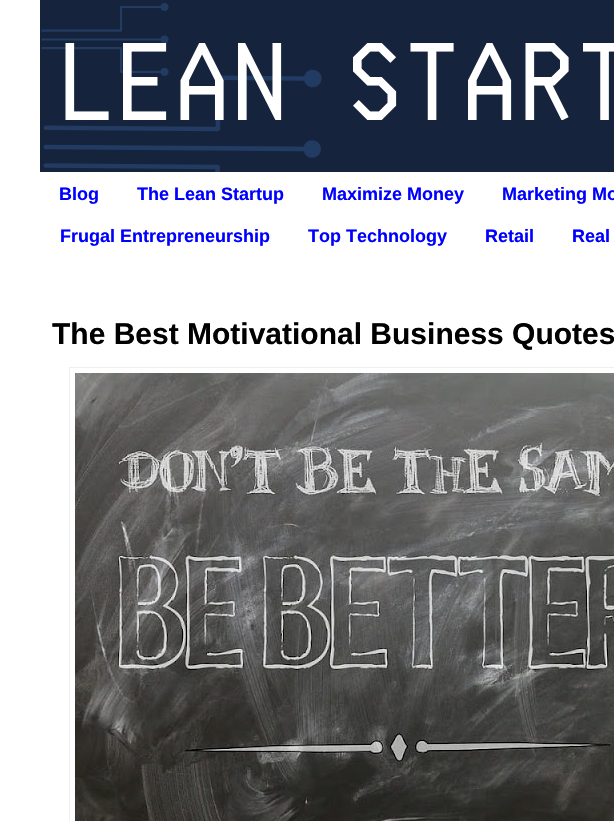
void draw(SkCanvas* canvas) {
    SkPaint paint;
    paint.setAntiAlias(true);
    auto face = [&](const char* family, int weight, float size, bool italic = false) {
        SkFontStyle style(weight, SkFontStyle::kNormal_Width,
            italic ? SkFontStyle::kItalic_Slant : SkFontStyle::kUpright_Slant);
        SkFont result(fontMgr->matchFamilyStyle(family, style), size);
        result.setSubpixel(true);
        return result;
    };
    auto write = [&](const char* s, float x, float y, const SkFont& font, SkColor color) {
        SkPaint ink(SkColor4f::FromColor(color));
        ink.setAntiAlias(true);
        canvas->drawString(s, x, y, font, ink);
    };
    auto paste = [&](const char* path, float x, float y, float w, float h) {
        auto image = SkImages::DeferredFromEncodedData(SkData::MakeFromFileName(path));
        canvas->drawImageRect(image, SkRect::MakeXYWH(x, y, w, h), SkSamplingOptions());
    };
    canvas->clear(SK_ColorWHITE);
    paste("pic1.png", 40, 0, 574, 172);
    auto kFont1 = face("Liberation Sans", 700, 18);
    write("Blog", 59, 200, kFont1, SkColorSetRGB(0, 0, 255));
    write("The Lean Startup", 137, 200, kFont1, SkColorSetRGB(0, 0, 255));
    write("Maximize Money", 322, 200, kFont1, SkColorSetRGB(0, 0, 255));
    write("Marketing Mo", 502, 200, kFont1, SkColorSetRGB(0, 0, 255));
    write("Frugal Entrepreneurship", 60, 242, kFont1, SkColorSetRGB(0, 0, 255));
    write("Top Technology", 308, 242, kFont1, SkColorSetRGB(0, 0, 255));
    write("Retail", 485, 242, kFont1, SkColorSetRGB(0, 0, 255));
    write("Real", 572, 242, kFont1, SkColorSetRGB(0, 0, 255));
    auto kFont2 = face("Liberation Sans", 700, 30);
    write("The Best Motivational Business Quotes", 52, 344, kFont2, SK_ColorBLACK);
    paint.setStyle(SkPaint::kStroke_Style);
    paint.setStrokeWidth(1);
    paint.setColor(SkColorSetRGB(239, 239, 239));
    canvas->drawRect(SkRect::MakeXYWH(69.5f, 367.5f, 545, 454), paint);
    paste("pic2.png", 75, 373, 539, 448);
}
